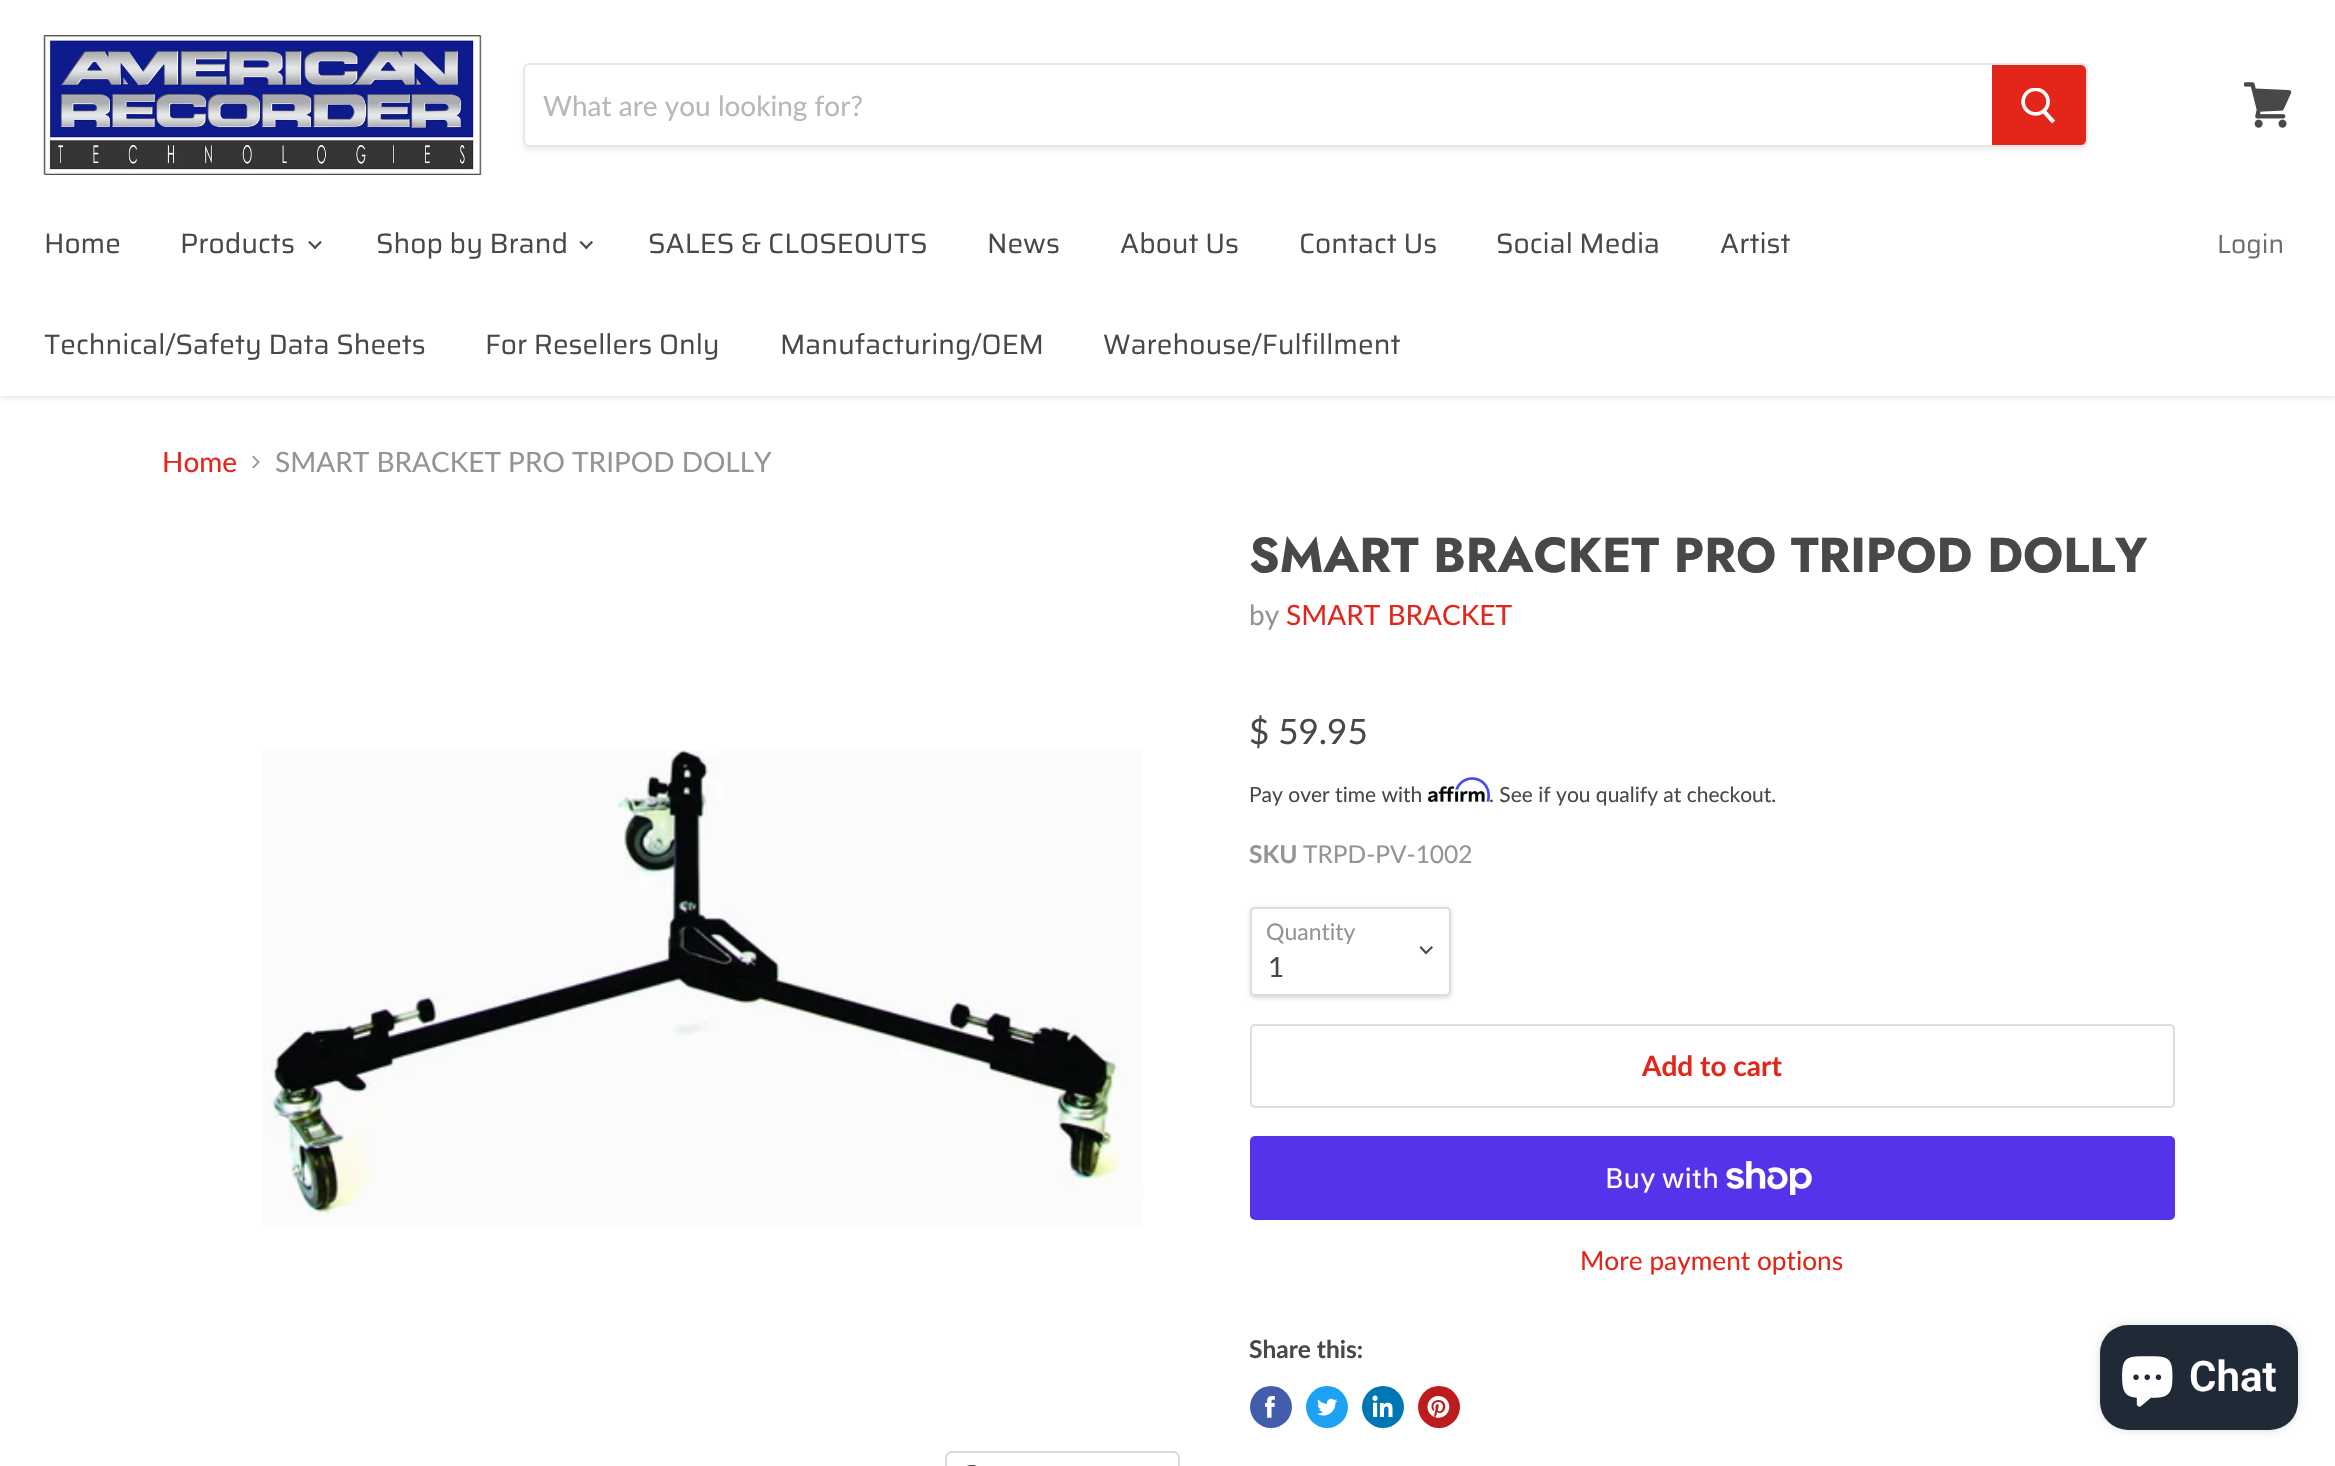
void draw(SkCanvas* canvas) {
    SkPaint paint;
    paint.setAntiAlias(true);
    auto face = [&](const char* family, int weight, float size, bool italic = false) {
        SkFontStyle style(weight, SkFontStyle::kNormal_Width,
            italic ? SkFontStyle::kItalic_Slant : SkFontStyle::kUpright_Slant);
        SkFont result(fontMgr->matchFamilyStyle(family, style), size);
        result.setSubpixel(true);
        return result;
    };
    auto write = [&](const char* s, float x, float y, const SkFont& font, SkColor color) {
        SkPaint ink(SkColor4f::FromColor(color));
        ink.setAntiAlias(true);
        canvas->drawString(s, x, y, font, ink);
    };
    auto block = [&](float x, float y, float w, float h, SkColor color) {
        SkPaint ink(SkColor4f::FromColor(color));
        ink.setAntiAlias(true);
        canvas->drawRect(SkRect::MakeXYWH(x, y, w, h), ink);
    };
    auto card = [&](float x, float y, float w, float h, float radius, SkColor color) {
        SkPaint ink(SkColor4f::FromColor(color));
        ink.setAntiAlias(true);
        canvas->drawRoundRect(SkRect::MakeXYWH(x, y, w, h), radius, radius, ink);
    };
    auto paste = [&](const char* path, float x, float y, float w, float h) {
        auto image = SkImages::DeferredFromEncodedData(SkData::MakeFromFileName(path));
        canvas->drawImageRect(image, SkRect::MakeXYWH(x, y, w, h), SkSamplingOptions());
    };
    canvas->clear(SK_ColorWHITE);
    paint.setColor(SkColorSetARGB(64, 128, 128, 128));
    paint.setMaskFilter(SkMaskFilter::MakeBlur(kNormal_SkBlurStyle, 3.5f));
    canvas->drawRect(SkRect::MakeXYWH(0, 2, 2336, 395), paint);
    paint.setMaskFilter(nullptr);
    block(0, 0, 2335, 396, SK_ColorWHITE);
    paste("pic1.png", 43, 35, 439, 140);
    canvas->save();
    canvas->clipPath(SkPathBuilder(SkPathFillType::kEvenOdd).moveTo(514, 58).lineTo(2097, 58).lineTo(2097, 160).lineTo(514, 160).close().moveTo(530, 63).lineTo(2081, 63).cubicTo(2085, 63, 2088, 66, 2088, 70).lineTo(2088, 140).cubicTo(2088, 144, 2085, 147, 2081, 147).lineTo(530, 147).cubicTo(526, 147, 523, 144, 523, 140).lineTo(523, 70).cubicTo(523, 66, 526, 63, 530, 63).close().detach(), true);
    paint.setColor(SkColorSetARGB(28, 128, 128, 128));
    paint.setMaskFilter(SkMaskFilter::MakeBlur(kNormal_SkBlurStyle, 2.5f));
    canvas->drawRoundRect(SkRect::MakeXYWH(523, 67, 1565, 84), 7, 7, paint);
    paint.setMaskFilter(nullptr);
    canvas->restore();
    paint.setStyle(SkPaint::kStroke_Style);
    paint.setStrokeWidth(2);
    paint.setColor(SkColorSetARGB(51, 128, 128, 128));
    canvas->drawRoundRect(SkRect::MakeXYWH(524, 64, 1563, 82), 6, 6, paint);
    paint.setStyle(SkPaint::kFill_Style);
    paint.setColor(SK_ColorWHITE);
    canvas->drawPath(SkPathBuilder().moveTo(530, 65).lineTo(1992, 65).lineTo(1992, 145).lineTo(530, 145).cubicTo(527, 145, 525, 143, 525, 140).lineTo(525, 70).cubicTo(525, 67, 527, 65, 530, 65).close().detach(), paint);
    auto kFont1 = face("Lato", 400, 28);
    write("What are you looking for?", 543, 116, kFont1, SkColorSetRGB(184, 184, 184));
    paint.setColor(SkColorSetRGB(227, 38, 25));
    canvas->drawPath(SkPathBuilder().moveTo(1993, 66).lineTo(2081, 66).cubicTo(2083, 66, 2085, 68, 2085, 70).lineTo(2085, 140).cubicTo(2085, 142, 2083, 144, 2081, 144).lineTo(1993, 144).close().detach(), paint);
    paint.setStyle(SkPaint::kStroke_Style);
    canvas->drawPath(SkPathBuilder().moveTo(1993, 66).lineTo(2081, 66).cubicTo(2083, 66, 2085, 68, 2085, 70).lineTo(2085, 140).cubicTo(2085, 142, 2083, 144, 2081, 144).lineTo(1993, 144).close().detach(), paint);
    paste("pic2.png", 2021, 88, 34, 36);
    paste("pic3.png", 2244, 82, 48, 46);
    auto kFont2 = face("Saira", 400, 28);
    write("Home", 44, 253, kFont2, SkColorSetRGB(72, 72, 72));
    write("Products", 180, 253, kFont2, SkColorSetRGB(72, 72, 72));
    paste("pic4.png", 308, 240, 14, 10);
    write("Shop by Brand", 376, 253, kFont2, SkColorSetRGB(72, 72, 72));
    paste("pic5.png", 579, 240, 14, 10);
    write("SALES & CLOSEOUTS", 648, 253, kFont2, SkColorSetRGB(72, 72, 72));
    write("News", 987, 253, kFont2, SkColorSetRGB(72, 72, 72));
    write("About Us", 1120, 253, kFont2, SkColorSetRGB(72, 72, 72));
    write("Contact Us", 1299, 253, kFont2, SkColorSetRGB(72, 72, 72));
    write("Social Media", 1496, 253, kFont2, SkColorSetRGB(72, 72, 72));
    write("Artist", 1720, 253, kFont2, SkColorSetRGB(72, 72, 72));
    write("Technical/Safety Data Sheets", 44, 354, kFont2, SkColorSetRGB(72, 72, 72));
    write("For Resellers Only", 485, 354, kFont2, SkColorSetRGB(72, 72, 72));
    write("Manufacturing/OEM", 780, 354, kFont2, SkColorSetRGB(72, 72, 72));
    write("Warehouse/Fulfillment", 1103, 354, kFont2, SkColorSetRGB(72, 72, 72));
    auto kFont3 = face("Saira", 400, 26.25f);
    write("Login", 2217, 253, kFont3, SkColorSetRGB(109, 109, 109));
    write("Home", 162, 472, kFont1, SkColorSetRGB(227, 38, 25));
    paste("pic6.png", 252, 455, 8, 14);
    write("SMART BRACKET PRO TRIPOD DOLLY", 275, 472, kFont1, SkColorSetRGB(148, 148, 148));
    paste("pic7.png", 262, 750, 881, 477);
    paint.setColor(SkColorSetRGB(217, 217, 217));
    canvas->drawRoundRect(SkRect::MakeXYWH(946, 1452, 233, 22), 6, 6, paint);
    card(947, 1453, 231, 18, 5, SkColorSetARGB(230, 255, 255, 255));
    paste("pic8.png", 967, 1465, 10, 1);
    auto kFont4 = face("Jost", 700, 49);
    write("SMART BRACKET PRO TRIPOD DOLLY", 1249, 572, kFont4, SkColorSetRGB(72, 72, 72));
    write("by", 1249, 625, kFont1, SkColorSetRGB(148, 148, 148));
    write("SMART BRACKET", 1286, 625, kFont1, SkColorSetRGB(227, 38, 25));
    auto kFont5 = face("Lato", 400, 35);
    write("$ 59.95", 1249, 744, kFont5, SkColorSetRGB(72, 72, 72));
    auto kFont6 = face("Lato", 400, 21);
    write("Pay over time with", 1249, 802, kFont6, SkColorSetRGB(72, 72, 72));
    paste("pic10.png", 1428, 786, 57, 16);
    paste("pic9.png", 1455, 777, 35, 25);
    write(". See if you qualify at checkout.", 1489, 802, kFont6, SkColorSetRGB(72, 72, 72));
    auto kFont7 = face("Lato", 700, 24.5f);
    write("SKU", 1249, 863, kFont7, SkColorSetRGB(148, 148, 148));
    auto kFont8 = face("Lato", 400, 24.5f);
    write("TRPD-PV-1002", 1303, 863, kFont8, SkColorSetRGB(148, 148, 148));
    paint.setStyle(SkPaint::kFill_Style);
    paint.setColor(SkColorSetARGB(38, 0, 0, 0));
    paint.setMaskFilter(SkMaskFilter::MakeBlur(kNormal_SkBlurStyle, 2));
    canvas->drawRoundRect(SkRect::MakeXYWH(1250, 908, 201, 90), 5, 5, paint);
    paint.setMaskFilter(nullptr);
    paint.setColor(SK_ColorWHITE);
    canvas->drawRoundRect(SkRect::MakeXYWH(1251, 908, 199, 87), 4, 4, paint);
    paint.setStyle(SkPaint::kStroke_Style);
    paint.setColor(SkColorSetRGB(221, 221, 221));
    canvas->drawRoundRect(SkRect::MakeXYWH(1251, 908, 199, 87), 4, 4, paint);
    auto kFont9 = face("Lato", 400, 23);
    write("Quantity", 1266, 940, kFont9, SkColorSetRGB(148, 148, 148));
    paint.setStrokeWidth(2.2f);
    paint.setStrokeCap(SkPaint::kSquare_Cap);
    paint.setColor(SkColorSetRGB(77, 77, 77));
    canvas->drawPath(SkPathBuilder().moveTo(1426, 953).lineTo(1431.5f, 947.5f).moveTo(1426, 953).lineTo(1421, 947.5f).detach(), paint);
    write("1", 1268, 977, kFont1, SkColorSetRGB(72, 72, 72));
    paint.setStrokeWidth(2);
    paint.setStrokeCap(SkPaint::kButt_Cap);
    paint.setColor(SkColorSetRGB(221, 221, 221));
    canvas->drawRoundRect(SkRect::MakeXYWH(1251, 1025, 923, 82), 4, 4, paint);
    auto kFont10 = face("Lato", 700, 28);
    write("Add to cart", 1642, 1076, kFont10, SkColorSetRGB(227, 38, 25));
    card(1250, 1136, 925, 84, 5, SkColorSetRGB(84, 51, 235));
    auto kFont11 = face("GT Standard", 400, 28);
    write("Buy with", 1605, 1188, kFont11, SK_ColorWHITE);
    paste("pic11.png", 1726, 1161, 86, 34);
    auto kFont12 = face("Lato", 400, 26.25f);
    write("More payment options", 1580, 1270, kFont12, SkColorSetRGB(227, 38, 25));
    write("Share this:", 1249, 1358, kFont7, SkColorSetRGB(72, 72, 72));
    paint.setStyle(SkPaint::kFill_Style);
    paint.setColor(SkColorSetRGB(66, 93, 171));
    canvas->drawCircle(1271, 1407, 21, paint);
    paste("pic12.png", 1265, 1396, 10, 22);
    paint.setColor(SkColorSetRGB(29, 161, 242));
    canvas->drawCircle(1327, 1407, 21, paint);
    paste("pic13.png", 1317, 1398, 21, 18);
    paint.setColor(SkColorSetRGB(0, 119, 181));
    canvas->drawCircle(1383, 1407, 21, paint);
    paste("pic14.png", 1372, 1395, 21, 22);
    paint.setColor(SkColorSetRGB(189, 28, 28));
    canvas->drawCircle(1439, 1407, 21, paint);
    paste("pic15.png", 1427, 1396, 23, 22);
    paint.setColor(SkColorSetARGB(38, 0, 0, 0));
    paint.setMaskFilter(SkMaskFilter::MakeBlur(kNormal_SkBlurStyle, 4.5f));
    canvas->drawRoundRect(SkRect::MakeXYWH(2100, 1325, 198, 105), 28, 28, paint);
    paint.setMaskFilter(nullptr);
    card(2100, 1325, 198, 105, 28, SkColorSetRGB(32, 42, 54));
    paste("pic16.png", 2122, 1356, 51, 51);
    auto kFont13 = face("Roboto", 600, 42);
    write("Chat", 2189, 1391, kFont13, SK_ColorWHITE);
}
